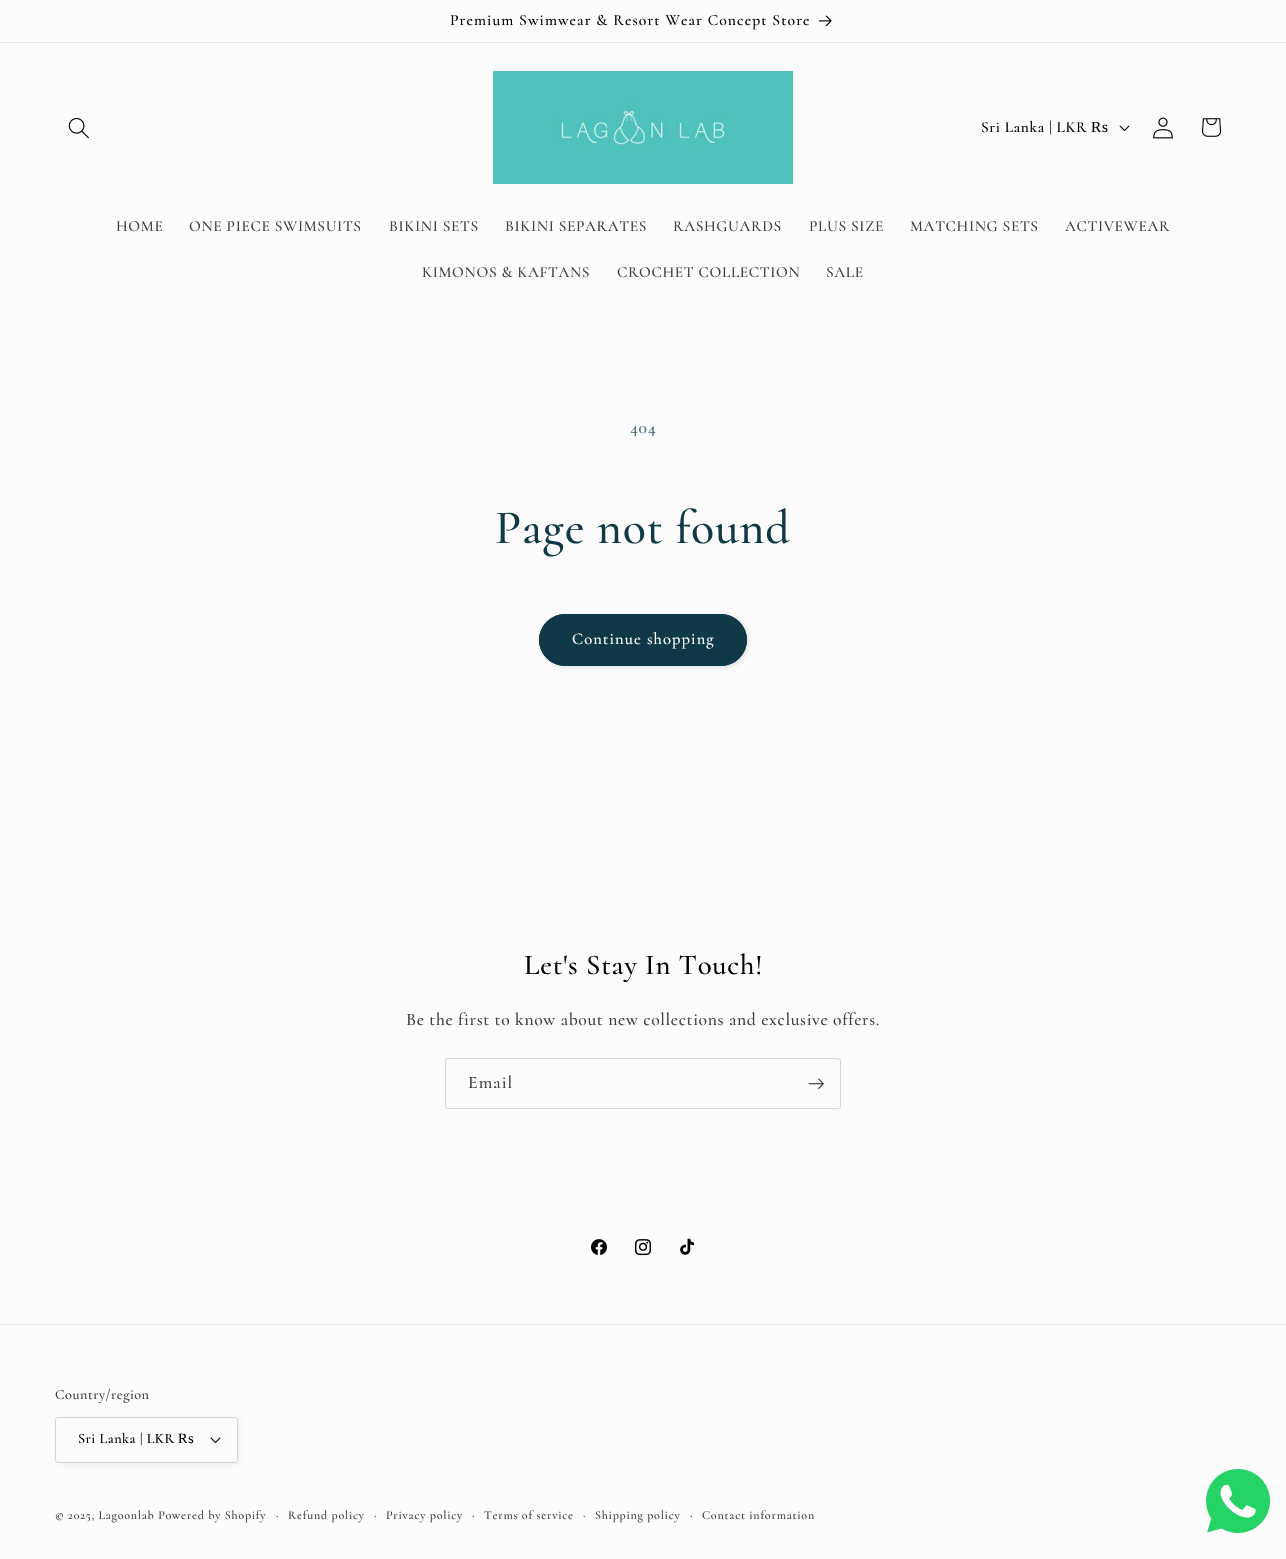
void draw(SkCanvas* canvas) {
    SkPaint paint;
    paint.setAntiAlias(true);
    auto face = [&](const char* family, int weight, float size, bool italic = false) {
        SkFontStyle style(weight, SkFontStyle::kNormal_Width,
            italic ? SkFontStyle::kItalic_Slant : SkFontStyle::kUpright_Slant);
        SkFont result(fontMgr->matchFamilyStyle(family, style), size);
        result.setSubpixel(true);
        return result;
    };
    auto writeSpaced = [&](const char* s, float x, float y, const SkFont& font, const SkPaint& ink, float letter, float word) {
        std::vector<SkGlyphID> glyphs(font.countText(s, strlen(s), SkTextEncoding::kUTF8));
        std::vector<float> xs(glyphs.size());
        font.textToGlyphs(s, strlen(s), SkTextEncoding::kUTF8, glyphs);
        font.getXPos(glyphs, xs, x);
        float extra = 0;
        for (size_t i = 0; i < glyphs.size(); i++) {
            xs[i] += extra;
            extra += letter + word * (glyphs[i] == font.unicharToGlyph(' '));
        }
        canvas->drawTextBlob(SkTextBlob::MakeFromPosHGlyphs(glyphs, xs, y, font), 0, 0, ink);
    };
    auto block = [&](float x, float y, float w, float h, SkColor color) {
        SkPaint ink(SkColor4f::FromColor(color));
        ink.setAntiAlias(true);
        canvas->drawRect(SkRect::MakeXYWH(x, y, w, h), ink);
    };
    auto card = [&](float x, float y, float w, float h, float radius, SkColor color) {
        SkPaint ink(SkColor4f::FromColor(color));
        ink.setAntiAlias(true);
        canvas->drawRoundRect(SkRect::MakeXYWH(x, y, w, h), radius, radius, ink);
    };
    auto paste = [&](const char* path, float x, float y, float w, float h) {
        auto image = SkImages::DeferredFromEncodedData(SkData::MakeFromFileName(path));
        canvas->drawImageRect(image, SkRect::MakeXYWH(x, y, w, h), SkSamplingOptions());
    };
    canvas->clear(SkColorSetRGB(252, 252, 252));
    block(0, 42, 1286, 1, SkColorSetRGB(232, 232, 232));
    auto kFont1 = face("Cormorant", 500, 15.6f);
    paint.setColor(SK_ColorBLACK);
    writeSpaced("Premium Swimwear & Resort Wear Concept Store", 450, 25, kFont1, paint, 1.1f, 0);
    paste("pic1.png", 819, 15, 13, 12);
    paste("pic2.png", 68, 117, 21, 22);
    paste("pic3.png", 493, 71, 300, 113);
    auto kFont2 = face("Cormorant", 500, 15.4f);
    writeSpaced("Sri Lanka | LKR", 981, 132, kFont2, paint, 0.65f, 0);
    auto kFont3 = face("Liberation Serif", 400, 15.4f);
    writeSpaced("₨", 1091, 132, kFont3, paint, 0.65f, 0);
    paste("pic4.png", 1119, 125, 11, 6);
    paste("pic5.png", 1153, 117, 20, 22);
    paste("pic6.png", 1202, 118, 20, 19);
    paint.setColor(SkColorSetRGB(63, 63, 63));
    writeSpaced("HOME", 116, 231, kFont2, paint, 0.65f, 0);
    writeSpaced("ONE PIECE SWIMSUITS", 189, 231, kFont2, paint, 0.65f, 0);
    writeSpaced("BIKINI SETS", 389, 231, kFont2, paint, 0.65f, 0);
    writeSpaced("BIKINI SEPARATES", 505, 231, kFont2, paint, 0.65f, 0);
    writeSpaced("RASHGUARDS", 673, 231, kFont2, paint, 0.65f, 0);
    writeSpaced("PLUS SIZE", 809, 231, kFont2, paint, 0.65f, 0);
    writeSpaced("MATCHING SETS", 910, 231, kFont2, paint, 0.65f, 0);
    writeSpaced("ACTIVEWEAR", 1065, 231, kFont2, paint, 0.65f, 0);
    writeSpaced("KIMONOS & KAFTANS", 422, 277, kFont2, paint, 0.65f, 0);
    writeSpaced("CROCHET COLLECTION", 617, 277, kFont2, paint, 0.65f, 0);
    writeSpaced("SALE", 826, 277, kFont2, paint, 0.65f, 0);
    auto kFont4 = face("Cormorant", 500, 17.6f);
    paint.setColor(SkColorSetRGB(75, 106, 117));
    writeSpaced("404", 630, 433, kFont4, paint, 0.65f, 0);
    auto kFont5 = face("Cormorant", 500, 48);
    paint.setColor(SkColorSetRGB(16, 57, 72));
    writeSpaced("Page not found", 495, 543, kFont5, paint, 0.75f, 0);
    paint.setColor(SkColorSetARGB(26, 16, 57, 72));
    paint.setMaskFilter(SkMaskFilter::MakeBlur(kNormal_SkBlurStyle, 2.5f));
    canvas->drawRoundRect(SkRect::MakeXYWH(541, 616, 208, 52), 26, 26, paint);
    paint.setMaskFilter(nullptr);
    card(539, 614, 208, 52, 26, SkColorSetRGB(16, 57, 72));
    paint.setStyle(SkPaint::kStroke_Style);
    paint.setStrokeWidth(1);
    paint.setColor(SkColorSetRGB(16, 57, 72));
    canvas->drawRoundRect(SkRect::MakeXYWH(539.5f, 614.5f, 207, 51), 25.5f, 25.5f, paint);
    auto kFont6 = face("Cormorant", 500, 16.5f);
    paint.setStyle(SkPaint::kFill_Style);
    paint.setColor(SkColorSetRGB(252, 252, 252));
    writeSpaced("Continue shopping", 572, 644, kFont6, paint, 1.1f, 0);
    auto kFont7 = face("Cormorant", 500, 28.75f);
    paint.setColor(SK_ColorBLACK);
    writeSpaced("Let's Stay In Touch!", 524, 974, kFont7, paint, 0.75f, 0);
    paint.setColor(SkColorSetRGB(63, 63, 63));
    writeSpaced("Be the first to know about new collections and exclusive offers.", 406, 1025, kFont4, paint, 0.65f, 0);
    paint.setStyle(SkPaint::kStroke_Style);
    paint.setColor(SkColorSetARGB(38, 0, 0, 0));
    canvas->drawRoundRect(SkRect::MakeXYWH(445.5f, 1058.5f, 395, 50), 2.5f, 2.5f, paint);
    paint.setStyle(SkPaint::kFill_Style);
    paint.setColor(SkColorSetRGB(63, 63, 63));
    writeSpaced("Email", 468, 1088, kFont4, paint, 1.1f, 0);
    paste("pic7.png", 808, 1078, 16, 11);
    paste("pic8.png", 591, 1239, 16, 16);
    paste("pic9.png", 635, 1239, 16, 17);
    paste("pic10.png", 680, 1238, 15, 17);
    block(0, 1324, 1286, 1, SkColorSetRGB(232, 232, 232));
    auto kFont8 = face("Cormorant", 500, 14.25f);
    writeSpaced("Country/region", 55, 1399, kFont8, paint, 0.5f, 0);
    paint.setColor(SkColorSetARGB(13, 0, 0, 0));
    paint.setMaskFilter(SkMaskFilter::MakeBlur(kNormal_SkBlurStyle, 2.5f));
    canvas->drawRoundRect(SkRect::MakeXYWH(57, 1419, 183, 46), 3, 3, paint);
    paint.setMaskFilter(nullptr);
    card(55, 1417, 183, 46, 3, SkColorSetRGB(252, 252, 252));
    paste("pic4.png", 210, 1437, 11, 6);
    paint.setStyle(SkPaint::kStroke_Style);
    paint.setColor(SkColorSetRGB(214, 214, 214));
    canvas->drawRoundRect(SkRect::MakeXYWH(55.5f, 1417.5f, 182, 45), 2.5f, 2.5f, paint);
    paint.setStyle(SkPaint::kFill_Style);
    paint.setColor(SK_ColorBLACK);
    writeSpaced("Sri Lanka | LKR", 78, 1443, kFont8, paint, 0.5f, 0);
    auto kFont9 = face("Liberation Serif", 400, 14.25f);
    writeSpaced("₨", 178, 1443, kFont9, paint, 0.5f, 0);
    auto kFont10 = face("Cormorant", 500, 12.1f);
    paint.setColor(SkColorSetRGB(63, 63, 63));
    writeSpaced("© 2025, Lagoonlab Powered by Shopify", 55, 1519, kFont10, paint, 0.75f, 0);
    auto kFont11 = face("Cormorant", 500, 13);
    writeSpaced("·", 276, 1519, kFont11, paint, 0.75f, 0);
    writeSpaced("Refund policy", 288, 1519, kFont10, paint, 0.75f, 0);
    writeSpaced("·", 374, 1519, kFont11, paint, 0.75f, 0);
    writeSpaced("Privacy policy", 386, 1519, kFont10, paint, 0.75f, 0);
    writeSpaced("·", 472, 1519, kFont11, paint, 0.75f, 0);
    writeSpaced("Terms of service", 484, 1519, kFont10, paint, 0.75f, 0);
    writeSpaced("·", 583, 1519, kFont11, paint, 0.75f, 0);
    writeSpaced("Shipping policy", 595, 1519, kFont10, paint, 0.75f, 0);
    writeSpaced("·", 690, 1519, kFont11, paint, 0.75f, 0);
    writeSpaced("Contact information", 702, 1519, kFont10, paint, 0.75f, 0);
    paste("pic11.png", 1206, 1469, 64, 64);
}
